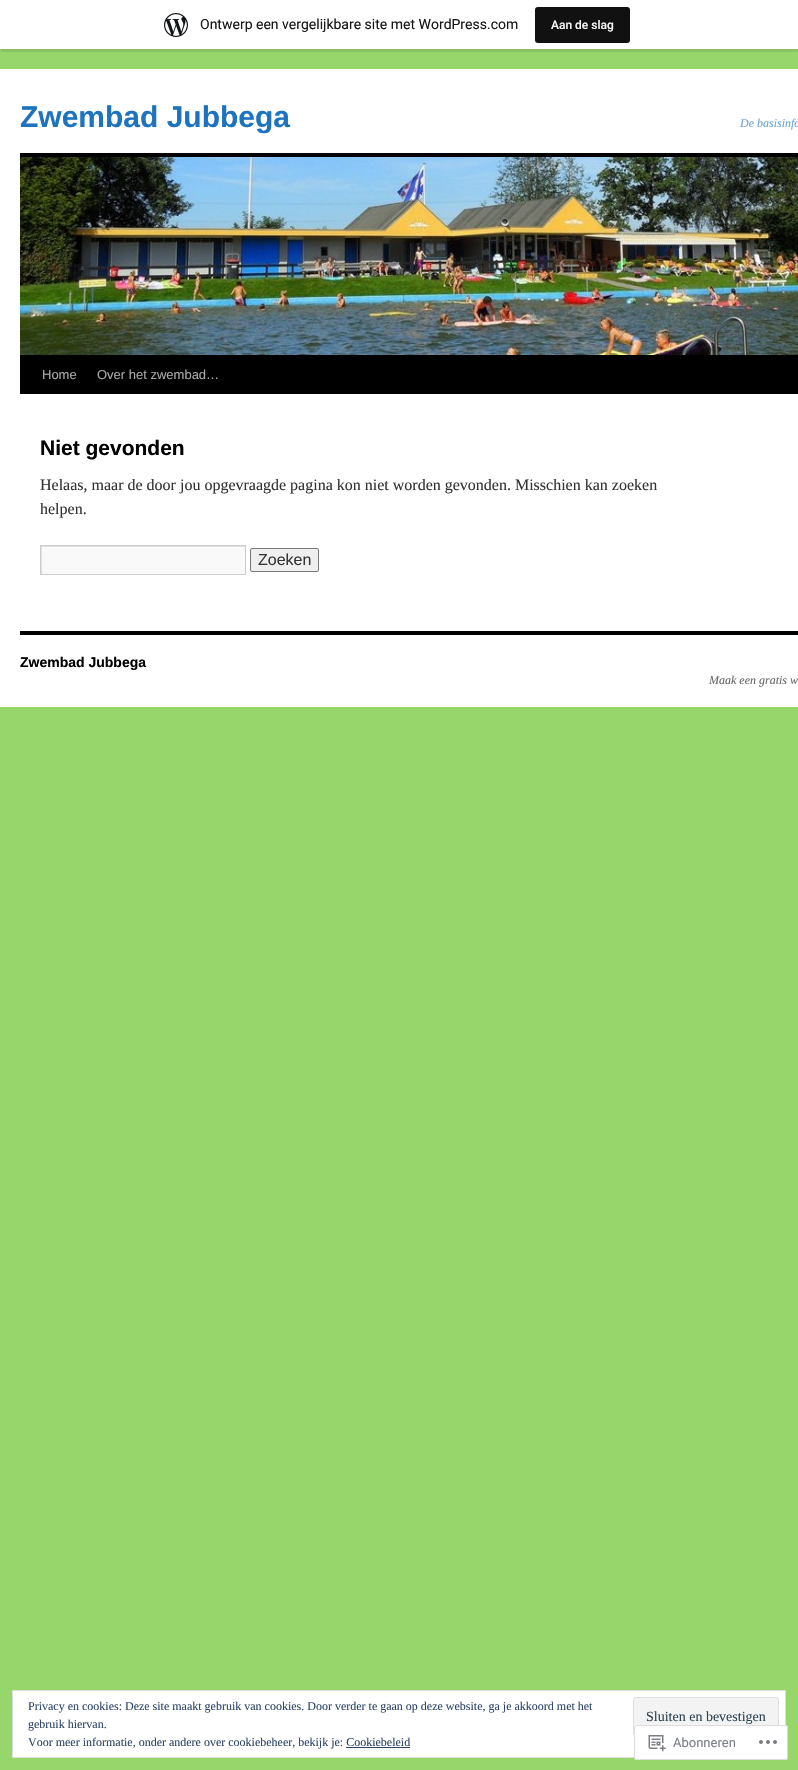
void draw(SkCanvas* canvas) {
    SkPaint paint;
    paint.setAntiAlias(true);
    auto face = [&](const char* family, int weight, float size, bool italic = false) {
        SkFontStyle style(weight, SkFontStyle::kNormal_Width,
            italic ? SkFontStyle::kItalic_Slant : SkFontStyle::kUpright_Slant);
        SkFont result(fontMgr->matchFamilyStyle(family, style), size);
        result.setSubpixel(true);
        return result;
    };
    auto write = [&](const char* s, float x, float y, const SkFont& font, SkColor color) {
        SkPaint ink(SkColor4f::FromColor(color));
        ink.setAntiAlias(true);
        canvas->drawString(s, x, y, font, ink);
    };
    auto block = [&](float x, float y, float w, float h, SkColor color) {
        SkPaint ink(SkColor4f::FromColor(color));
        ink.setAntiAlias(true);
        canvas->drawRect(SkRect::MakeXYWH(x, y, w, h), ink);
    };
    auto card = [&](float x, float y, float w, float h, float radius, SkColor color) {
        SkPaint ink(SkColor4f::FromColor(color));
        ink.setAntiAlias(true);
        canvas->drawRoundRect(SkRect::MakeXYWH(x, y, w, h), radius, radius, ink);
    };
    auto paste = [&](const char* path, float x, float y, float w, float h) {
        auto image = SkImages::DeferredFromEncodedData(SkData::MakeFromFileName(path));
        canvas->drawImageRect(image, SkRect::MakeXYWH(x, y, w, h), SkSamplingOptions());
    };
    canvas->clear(SkColorSetRGB(151, 214, 107));
    paint.setColor(SkColorSetARGB(13, 0, 0, 0));
    paint.setMaskFilter(SkMaskFilter::MakeBlur(kNormal_SkBlurStyle, 1));
    canvas->drawRect(SkRect::MakeXYWH(0, 1, 798, 49), paint);
    paint.setMaskFilter(nullptr);
    paint.setColor(SkColorSetARGB(20, 0, 0, 0));
    canvas->drawPath(SkPathBuilder().moveTo(1, 49).lineTo(1, 52).lineTo(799, 52).lineTo(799, 3).lineTo(798, 3).lineTo(798, 49).close().detach(), paint);
    block(0, 0, 798, 49, SK_ColorWHITE);
    paste("pic1.png", 164, 13, 24, 24);
    auto kFont1 = face("Roboto", 400, 14);
    write("Ontwerp een vergelijkbare site met WordPress.com", 200, 29, kFont1, SkColorSetRGB(23, 23, 23));
    card(535, 7, 95, 36, 3, SkColorSetRGB(17, 17, 17));
    auto kFont2 = face("Roboto", 500, 12);
    write("Aan de slag", 551, 29, kFont2, SkColorSetRGB(246, 247, 247));
    block(0, 69, 798, 638, SK_ColorWHITE);
    auto kFont3 = face("Liberation Sans", 700, 30);
    write("Zwembad Jubbega", 20, 127, kFont3, SkColorSetRGB(30, 115, 190));
    auto kFont4 = face("Liberation Serif", 400, 12, true);
    write("De basisinfo", 740, 127, kFont4, SkColorSetRGB(109, 164, 213));
    block(20, 153, 778, 4, SK_ColorBLACK);
    block(20, 355, 778, 39, SK_ColorBLACK);
    paste("pic2.png", 20, 157, 778, 198);
    auto kFont5 = face("Liberation Sans", 400, 13);
    write("Home", 42, 379, kFont5, SkColorSetRGB(170, 170, 170));
    write("Over het zwembad…", 97, 379, kFont5, SkColorSetRGB(170, 170, 170));
    auto kFont6 = face("Liberation Sans", 700, 21);
    write("Niet gevonden", 40, 455, kFont6, SK_ColorBLACK);
    auto kFont7 = face("Liberation Serif", 400, 16);
    write("Helaas, maar de door jou opgevraagde pagina kon niet worden gevonden. Misschien kan zoeken", 40, 490, kFont7, SkColorSetRGB(51, 51, 51));
    write("helpen.", 40, 514, kFont7, SkColorSetRGB(51, 51, 51));
    block(42, 547, 203, 27, SkColorSetRGB(249, 249, 249));
    canvas->save();
    canvas->clipRect(SkRect::MakeXYWH(41, 546, 204, 28));
    paint.setColor(SkColorSetRGB(224, 224, 224));
    canvas->drawPath(SkPathBuilder(SkPathFillType::kEvenOdd).moveTo(-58, 447).lineTo(344, 447).lineTo(344, 673).lineTo(-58, 673).close().moveTo(42, 547).lineTo(246, 547).lineTo(246, 575).lineTo(42, 575).close().detach(), paint);
    canvas->restore();
    paint.setStyle(SkPaint::kStroke_Style);
    paint.setStrokeWidth(1);
    paint.setColor(SkColorSetRGB(204, 204, 204));
    canvas->drawRect(SkRect::MakeXYWH(40.5f, 545.5f, 205, 29), paint);
    paint.setStyle(SkPaint::kFill_Style);
    paint.setColor(SkColorSetRGB(239, 239, 239));
    canvas->drawRoundRect(SkRect::MakeXYWH(250.5f, 548.5f, 68, 23), 1.5f, 1.5f, paint);
    paint.setStyle(SkPaint::kStroke_Style);
    paint.setColor(SkColorSetRGB(118, 118, 118));
    canvas->drawRoundRect(SkRect::MakeXYWH(250.5f, 548.5f, 68, 23), 1.5f, 1.5f, paint);
    auto kFont8 = face("Liberation Sans", 400, 16);
    write("Zoeken", 258, 565, kFont8, SkColorSetRGB(51, 51, 51));
    block(20, 631, 778, 4, SK_ColorBLACK);
    auto kFont9 = face("Liberation Sans", 700, 14);
    write("Zwembad Jubbega", 20, 667, kFont9, SK_ColorBLACK);
    write("Maak een gratis w", 709, 684, kFont4, SkColorSetRGB(102, 102, 102));
    paint.setStyle(SkPaint::kFill_Style);
    paint.setColor(SK_ColorWHITE);
    canvas->drawRect(SkRect::MakeXYWH(12.5f, 1690.5f, 773, 67), paint);
    paint.setStyle(SkPaint::kStroke_Style);
    paint.setColor(SkColorSetRGB(222, 222, 222));
    canvas->drawRect(SkRect::MakeXYWH(12.5f, 1690.5f, 773, 67), paint);
    auto kFont10 = face("Liberation Serif", 400, 12);
    write("Privacy en cookies: Deze site maakt gebruik van cookies. Door verder te gaan op deze website, ga je akkoord met het", 28, 1710, kFont10, SkColorSetRGB(46, 68, 103));
    write("gebruik hiervan.", 28, 1728, kFont10, SkColorSetRGB(46, 68, 103));
    paint.setStyle(SkPaint::kFill_Style);
    paint.setColor(SkColorSetRGB(243, 243, 243));
    canvas->drawRoundRect(SkRect::MakeXYWH(633.5f, 1697.5f, 145, 38), 2.5f, 2.5f, paint);
    paint.setStyle(SkPaint::kStroke_Style);
    paint.setColor(SkColorSetRGB(222, 222, 222));
    canvas->drawRoundRect(SkRect::MakeXYWH(633.5f, 1697.5f, 145, 38), 2.5f, 2.5f, paint);
    auto kFont11 = face("Liberation Serif", 400, 14);
    write("Sluiten en bevestigen", 646, 1721, kFont11, SkColorSetRGB(46, 68, 83));
    write("Voor meer informatie, onder andere over cookiebeheer, bekijk je: Cookiebeleid", 28, 1746, kFont10, SkColorSetRGB(46, 68, 103));
    block(346, 1747, 64, 1, SkColorSetRGB(46, 68, 103));
    card(634, 1725, 154, 35, 3, SkColorSetARGB(250, 255, 255, 255));
    paint.setColor(SkColorSetARGB(250, 220, 220, 222));
    canvas->drawRoundRect(SkRect::MakeXYWH(634.5f, 1725.5f, 153, 34), 2.5f, 2.5f, paint);
    paste("pic3.png", 648, 1735, 18, 17);
    auto kFont12 = face("Roboto", 400, 13);
    write("Abonneren", 673, 1747, kFont12, SkColorSetRGB(123, 127, 133));
    paste("pic4.png", 759, 1740, 18, 4);
}
